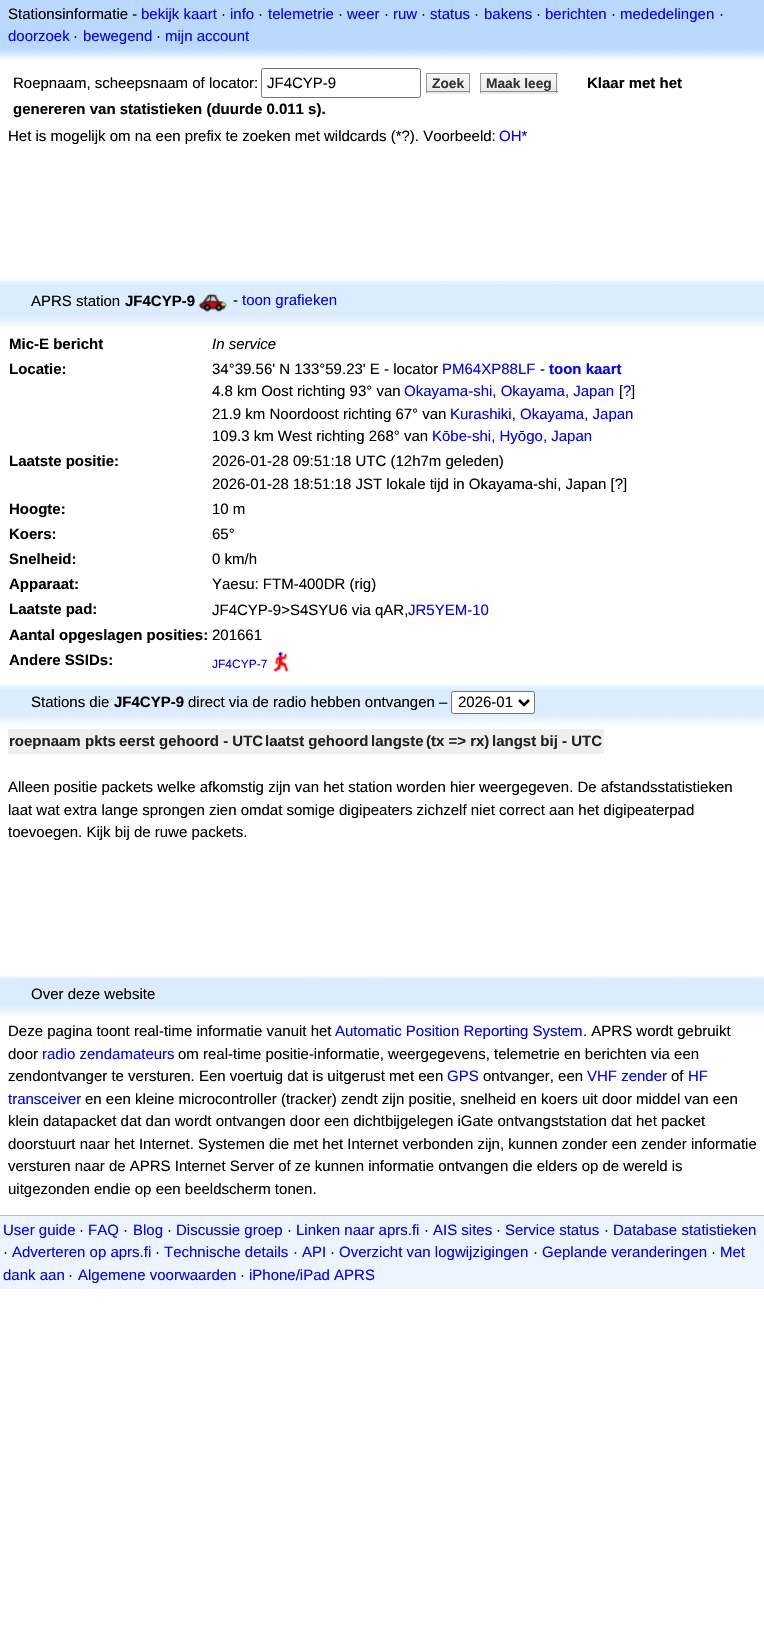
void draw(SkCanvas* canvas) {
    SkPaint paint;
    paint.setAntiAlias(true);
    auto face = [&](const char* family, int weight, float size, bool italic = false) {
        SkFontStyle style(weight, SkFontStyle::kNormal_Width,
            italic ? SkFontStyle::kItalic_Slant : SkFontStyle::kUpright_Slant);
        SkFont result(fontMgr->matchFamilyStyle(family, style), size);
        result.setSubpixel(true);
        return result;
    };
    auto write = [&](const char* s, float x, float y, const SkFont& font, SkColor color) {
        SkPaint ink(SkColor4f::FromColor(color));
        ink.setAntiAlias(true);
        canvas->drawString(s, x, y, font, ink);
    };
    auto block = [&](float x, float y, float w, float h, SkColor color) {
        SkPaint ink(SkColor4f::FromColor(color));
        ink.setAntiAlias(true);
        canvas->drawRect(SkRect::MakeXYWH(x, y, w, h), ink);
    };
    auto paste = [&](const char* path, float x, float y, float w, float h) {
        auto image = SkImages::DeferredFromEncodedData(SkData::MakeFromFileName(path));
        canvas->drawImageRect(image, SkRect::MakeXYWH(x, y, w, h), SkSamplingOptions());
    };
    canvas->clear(SK_ColorWHITE);
    block(0, 0, 764, 48, SkColorSetRGB(187, 217, 255));
    auto kFont1 = face("Liberation Sans", 400, 15);
    write("Stationsinformatie -", 8, 19, kFont1, SK_ColorBLACK);
    write("bekijk kaart", 141, 19, kFont1, SkColorSetRGB(0, 0, 255));
    write("·", 221, 19, kFont1, SK_ColorBLACK);
    write("info", 230, 19, kFont1, SkColorSetRGB(0, 0, 255));
    write("·", 258, 19, kFont1, SK_ColorBLACK);
    write("telemetrie", 268, 19, kFont1, SkColorSetRGB(0, 0, 255));
    write("·", 338, 19, kFont1, SK_ColorBLACK);
    write("weer", 347, 19, kFont1, SkColorSetRGB(0, 0, 255));
    write("·", 384, 19, kFont1, SK_ColorBLACK);
    write("ruw", 393, 19, kFont1, SkColorSetRGB(0, 0, 255));
    write("·", 421, 19, kFont1, SK_ColorBLACK);
    write("status", 430, 19, kFont1, SkColorSetRGB(0, 0, 255));
    write("·", 474, 19, kFont1, SK_ColorBLACK);
    write("bakens", 484, 19, kFont1, SkColorSetRGB(0, 0, 255));
    write("·", 536, 19, kFont1, SK_ColorBLACK);
    write("berichten", 545, 19, kFont1, SkColorSetRGB(0, 0, 255));
    write("·", 611, 19, kFont1, SK_ColorBLACK);
    write("mededelingen", 620, 19, kFont1, SkColorSetRGB(0, 0, 255));
    write("·", 719, 19, kFont1, SK_ColorBLACK);
    write("doorzoek", 8, 41, kFont1, SkColorSetRGB(0, 0, 255));
    write("·", 73, 41, kFont1, SK_ColorBLACK);
    write("bewegend", 83, 41, kFont1, SkColorSetRGB(0, 0, 255));
    write("·", 156, 41, kFont1, SK_ColorBLACK);
    write("mijn account", 165, 41, kFont1, SkColorSetRGB(0, 0, 255));
    paste("pic1.png", 0, 48, 764, 12);
    write("Roepnaam, scheepsnaam of locator:", 13, 88, kFont1, SK_ColorBLACK);
    paint.setStyle(SkPaint::kStroke_Style);
    paint.setStrokeWidth(1);
    paint.setColor(SkColorSetRGB(118, 118, 118));
    canvas->drawRoundRect(SkRect::MakeXYWH(261.5f, 68.5f, 159, 29), 2, 2, paint);
    write("JF4CYP-9", 267, 88, kFont1, SK_ColorBLACK);
    paint.setStyle(SkPaint::kFill_Style);
    paint.setColor(SkColorSetRGB(230, 230, 230));
    canvas->drawPath(SkPathBuilder().moveTo(426, 74).lineTo(426, 94).lineTo(470, 94).lineTo(470, 92).lineTo(426, 92).close().detach(), paint);
    block(427, 92, 42, 1, SkColorSetRGB(238, 238, 238));
    paste("pic2.png", 427, 74, 42, 17);
    block(426, 73, 44, 1, SkColorSetRGB(153, 153, 153));
    block(469, 73, 1, 20, SkColorSetRGB(153, 153, 153));
    block(426, 91, 44, 1, SkColorSetRGB(136, 136, 136));
    block(426, 73, 1, 20, SkColorSetRGB(153, 153, 153));
    auto kFont2 = face("Liberation Sans", 700, 13.75f);
    write("Zoek", 432, 88, kFont2, SkColorSetRGB(51, 51, 51));
    canvas->drawPath(SkPathBuilder().moveTo(480, 92).lineTo(480, 94).lineTo(558, 94).lineTo(558, 74).lineTo(558, 92).close().detach(), paint);
    block(481, 74, 77, 19, SkColorSetRGB(238, 238, 238));
    paste("pic3.png", 481, 74, 77, 17);
    block(480, 73, 78, 1, SkColorSetRGB(153, 153, 153));
    block(556, 73, 1, 20, SkColorSetRGB(153, 153, 153));
    block(480, 91, 78, 1, SkColorSetRGB(136, 136, 136));
    block(480, 73, 1, 20, SkColorSetRGB(153, 153, 153));
    write("Maak leeg", 486, 88, kFont2, SkColorSetRGB(51, 51, 51));
    auto kFont3 = face("Liberation Sans", 700, 15);
    write("Klaar met het", 587, 88, kFont3, SK_ColorBLACK);
    write("genereren van statistieken (duurde 0.011 s).", 13, 114, kFont3, SK_ColorBLACK);
    write("Het is mogelijk om na een prefix te zoeken met wildcards (*?). Voorbeeld:", 8, 141, kFont1, SK_ColorBLACK);
    write("OH*", 499, 141, kFont1, SkColorSetRGB(0, 0, 255));
    paste("pic4.png", 0, 279, 764, 5);
    block(0, 284, 764, 32, SkColorSetRGB(220, 236, 255));
    write("APRS station", 31, 306, kFont1, SK_ColorBLACK);
    write("JF4CYP-9", 125, 306, kFont3, SK_ColorBLACK);
    paste("pic5.png", 198, 293, 29, 19);
    write("-", 233, 305, kFont1, SK_ColorBLACK);
    write("toon grafieken", 242, 305, kFont1, SkColorSetRGB(0, 0, 255));
    paste("pic6.png", 0, 316, 764, 11);
    write("Mic-E bericht", 9, 349, kFont3, SK_ColorBLACK);
    auto kFont4 = face("Liberation Sans", 400, 15, true);
    write("In service", 212, 349, kFont4, SK_ColorBLACK);
    write("Locatie:", 9, 374, kFont3, SK_ColorBLACK);
    write("34°39.56' N 133°59.23' E - locator", 212, 374, kFont1, SK_ColorBLACK);
    write("PM64XP88LF", 442, 374, kFont1, SkColorSetRGB(0, 0, 255));
    write("-", 540, 374, kFont1, SK_ColorBLACK);
    write("toon kaart", 549, 374, kFont3, SkColorSetRGB(0, 0, 255));
    write("4.8 km Oost richting 93° van", 212, 396, kFont1, SK_ColorBLACK);
    write("Okayama-shi, Okayama, Japan", 404, 396, kFont1, SkColorSetRGB(0, 0, 255));
    write("[", 619, 396, kFont1, SK_ColorBLACK);
    write("?", 623, 396, kFont1, SkColorSetRGB(0, 0, 255));
    write("]", 631, 396, kFont1, SK_ColorBLACK);
    write("21.9 km Noordoost richting 67° van", 212, 419, kFont1, SK_ColorBLACK);
    write("Kurashiki, Okayama, Japan", 450, 419, kFont1, SkColorSetRGB(0, 0, 255));
    write("109.3 km West richting 268° van", 212, 441, kFont1, SK_ColorBLACK);
    write("Kōbe-shi, Hyōgo, Japan", 432, 441, kFont1, SkColorSetRGB(0, 0, 255));
    write("Laatste positie:", 9, 466, kFont3, SK_ColorBLACK);
    write("2026-01-28 09:51:18 UTC (12h7m geleden)", 212, 466, kFont1, SK_ColorBLACK);
    write("2026-01-28 18:51:18 JST lokale tijd in Okayama-shi, Japan [?]", 212, 489, kFont1, SK_ColorBLACK);
    write("Hoogte:", 9, 514, kFont3, SK_ColorBLACK);
    write("10 m", 212, 514, kFont1, SK_ColorBLACK);
    write("Koers:", 9, 539, kFont3, SK_ColorBLACK);
    write("65°", 212, 539, kFont1, SK_ColorBLACK);
    write("Snelheid:", 9, 564, kFont3, SK_ColorBLACK);
    write("0 km/h", 212, 564, kFont1, SK_ColorBLACK);
    write("Apparaat:", 9, 589, kFont3, SK_ColorBLACK);
    write("Yaesu: FTM-400DR (rig)", 212, 589, kFont1, SK_ColorBLACK);
    write("Laatste pad:", 9, 614, kFont3, SK_ColorBLACK);
    write("JF4CYP-9>S4SYU6 via qAR,", 212, 615, kFont1, SK_ColorBLACK);
    write("JR5YEM-10", 408, 615, kFont1, SkColorSetRGB(0, 0, 255));
    write("Aantal opgeslagen posities:", 9, 640, kFont3, SK_ColorBLACK);
    write("201661", 212, 640, kFont1, SK_ColorBLACK);
    write("Andere SSIDs:", 9, 665, kFont3, SK_ColorBLACK);
    auto kFont5 = face("Liberation Sans", 400, 12);
    write("JF4CYP-7", 212, 668, kFont5, SkColorSetRGB(0, 0, 255));
    paste("pic7.png", 273, 651, 16, 21);
    paste("pic4.png", 0, 684, 764, 5);
    block(0, 689, 764, 25, SkColorSetRGB(220, 236, 255));
    write("Stations die", 31, 707, kFont1, SK_ColorBLACK);
    write("JF4CYP-9", 114, 707, kFont3, SK_ColorBLACK);
    write("direct via de radio hebben ontvangen –", 188, 707, kFont1, SK_ColorBLACK);
    paint.setColor(SK_ColorWHITE);
    canvas->drawRoundRect(SkRect::MakeXYWH(451.5f, 691.5f, 83, 22), 2, 2, paint);
    paint.setStyle(SkPaint::kStroke_Style);
    paint.setColor(SkColorSetRGB(118, 118, 118));
    canvas->drawRoundRect(SkRect::MakeXYWH(451.5f, 691.5f, 83, 22), 2, 2, paint);
    paint.setStrokeWidth(2.5f);
    paint.setColor(SK_ColorBLACK);
    canvas->drawPath(SkPathBuilder().moveTo(519, 700).lineTo(524, 705).lineTo(529, 700).detach(), paint);
    write("2026-01", 458, 707, kFont1, SK_ColorBLACK);
    paste("pic8.png", 0, 714, 764, 11);
    block(8, 729, 596, 25, SkColorSetRGB(238, 238, 238));
    write("roepnaam", 9, 746, kFont3, SkColorSetRGB(34, 34, 34));
    write("pkts", 85, 746, kFont3, SkColorSetRGB(34, 34, 34));
    write("eerst gehoord - UTC", 119, 746, kFont3, SkColorSetRGB(34, 34, 34));
    write("laatst gehoord", 265, 746, kFont3, SkColorSetRGB(34, 34, 34));
    write("langste", 371, 746, kFont3, SkColorSetRGB(34, 34, 34));
    write("(tx => rx)", 426, 746, kFont3, SkColorSetRGB(34, 34, 34));
    write("langst bij - UTC", 492, 746, kFont3, SkColorSetRGB(34, 34, 34));
    write("Alleen positie packets welke afkomstig zijn van het station worden hier weergegeven. De afstandsstatistieken", 8, 792, kFont1, SK_ColorBLACK);
    write("laat wat extra lange sprongen zien omdat somige digipeaters zichzelf niet correct aan het digipeaterpad", 8, 815, kFont1, SK_ColorBLACK);
    write("toevoegen. Kijk bij de ruwe packets.", 8, 837, kFont1, SK_ColorBLACK);
    paste("pic9.png", 0, 976, 764, 4);
    block(0, 980, 764, 25, SkColorSetRGB(220, 236, 255));
    write("Over deze website", 31, 999, kFont1, SK_ColorBLACK);
    paste("pic10.png", 0, 1005, 764, 11);
    write("Deze pagina toont real-time informatie vanuit het", 8, 1036, kFont1, SK_ColorBLACK);
    write("Automatic Position Reporting System", 335, 1036, kFont1, SkColorSetRGB(0, 0, 255));
    write(". APRS wordt gebruikt", 583, 1036, kFont1, SK_ColorBLACK);
    write("door", 8, 1059, kFont1, SK_ColorBLACK);
    write("radio zendamateurs", 42, 1059, kFont1, SkColorSetRGB(0, 0, 255));
    write("om real-time positie-informatie, weergegevens, telemetrie en berichten via een", 178, 1059, kFont1, SK_ColorBLACK);
    write("zendontvanger te versturen. Een voertuig dat is uitgerust met een", 8, 1081, kFont1, SK_ColorBLACK);
    write("GPS", 447, 1081, kFont1, SkColorSetRGB(0, 0, 255));
    write("ontvanger, een", 483, 1081, kFont1, SK_ColorBLACK);
    write("VHF zender", 587, 1081, kFont1, SkColorSetRGB(0, 0, 255));
    write("of", 671, 1081, kFont1, SK_ColorBLACK);
    write("HF", 688, 1081, kFont1, SkColorSetRGB(0, 0, 255));
    write("transceiver", 8, 1104, kFont1, SkColorSetRGB(0, 0, 255));
    write("en een kleine microcontroller (tracker) zendt zijn positie, snelheid en koers uit door middel van een", 85, 1104, kFont1, SK_ColorBLACK);
    write("klein datapacket dat dan wordt ontvangen door een dichtbijgelegen iGate ontvangststation dat het packet", 8, 1126, kFont1, SK_ColorBLACK);
    write("doorstuurt naar het Internet. Systemen die met het Internet verbonden zijn, kunnen zonder een zender informatie", 8, 1149, kFont1, SK_ColorBLACK);
    write("versturen naar de APRS Internet Server of ze kunnen informatie ontvangen die elders op de wereld is", 8, 1171, kFont1, SK_ColorBLACK);
    write("uitgezonden endie op een beeldscherm tonen.", 8, 1194, kFont1, SK_ColorBLACK);
    block(0, 1216, 764, 73, SkColorSetRGB(235, 244, 255));
    block(0, 1215, 764, 1, SkColorSetRGB(189, 189, 189));
    write("User guide", 3, 1235, kFont1, SkColorSetRGB(0, 0, 255));
    write("·", 79, 1235, kFont1, SK_ColorBLACK);
    write("FAQ", 88, 1235, kFont1, SkColorSetRGB(0, 0, 255));
    write("·", 123, 1235, kFont1, SK_ColorBLACK);
    write("Blog", 133, 1235, kFont1, SkColorSetRGB(0, 0, 255));
    write("·", 167, 1235, kFont1, SK_ColorBLACK);
    write("Discussie groep", 176, 1235, kFont1, SkColorSetRGB(0, 0, 255));
    write("·", 287, 1235, kFont1, SK_ColorBLACK);
    write("Linken naar aprs.fi", 296, 1235, kFont1, SkColorSetRGB(0, 0, 255));
    write("·", 424, 1235, kFont1, SK_ColorBLACK);
    write("AIS sites", 433, 1235, kFont1, SkColorSetRGB(0, 0, 255));
    write("·", 496, 1235, kFont1, SK_ColorBLACK);
    write("Service status", 505, 1235, kFont1, SkColorSetRGB(0, 0, 255));
    write("·", 604, 1235, kFont1, SK_ColorBLACK);
    write("Database statistieken", 613, 1235, kFont1, SkColorSetRGB(0, 0, 255));
    write("·", 3, 1257, kFont1, SK_ColorBLACK);
    write("Adverteren op aprs.fi", 12, 1257, kFont1, SkColorSetRGB(0, 0, 255));
    write("·", 155, 1257, kFont1, SK_ColorBLACK);
    write("Technische details", 164, 1257, kFont1, SkColorSetRGB(0, 0, 255));
    write("·", 293, 1257, kFont1, SK_ColorBLACK);
    write("API", 302, 1257, kFont1, SkColorSetRGB(0, 0, 255));
    write("·", 330, 1257, kFont1, SK_ColorBLACK);
    write("Overzicht van logwijzigingen", 339, 1257, kFont1, SkColorSetRGB(0, 0, 255));
    write("·", 533, 1257, kFont1, SK_ColorBLACK);
    write("Geplande veranderingen", 542, 1257, kFont1, SkColorSetRGB(0, 0, 255));
    write("·", 711, 1257, kFont1, SK_ColorBLACK);
    write("Met", 720, 1257, kFont1, SkColorSetRGB(0, 0, 255));
    write("dank aan", 3, 1280, kFont1, SkColorSetRGB(0, 0, 255));
    write("·", 68, 1280, kFont1, SK_ColorBLACK);
    write("Algemene voorwaarden", 78, 1280, kFont1, SkColorSetRGB(0, 0, 255));
    write("·", 240, 1280, kFont1, SK_ColorBLACK);
    write("iPhone/iPad APRS", 249, 1280, kFont1, SkColorSetRGB(0, 0, 255));
}
